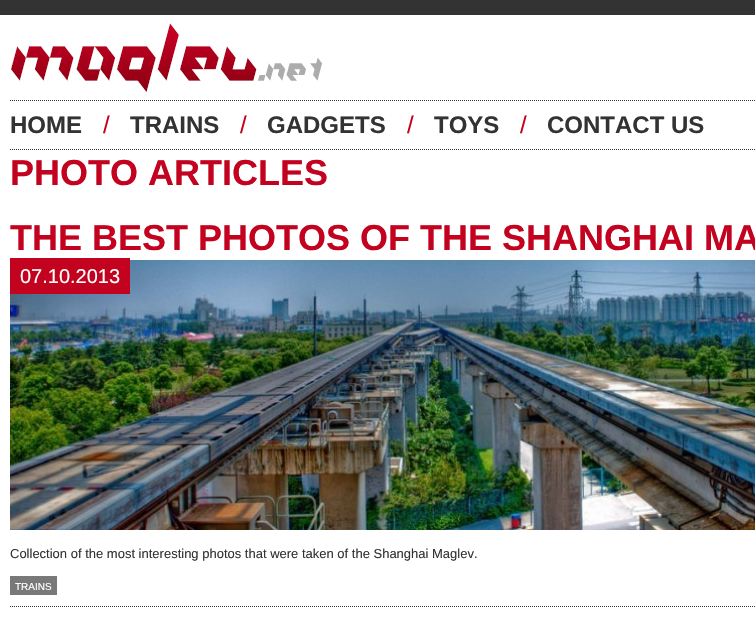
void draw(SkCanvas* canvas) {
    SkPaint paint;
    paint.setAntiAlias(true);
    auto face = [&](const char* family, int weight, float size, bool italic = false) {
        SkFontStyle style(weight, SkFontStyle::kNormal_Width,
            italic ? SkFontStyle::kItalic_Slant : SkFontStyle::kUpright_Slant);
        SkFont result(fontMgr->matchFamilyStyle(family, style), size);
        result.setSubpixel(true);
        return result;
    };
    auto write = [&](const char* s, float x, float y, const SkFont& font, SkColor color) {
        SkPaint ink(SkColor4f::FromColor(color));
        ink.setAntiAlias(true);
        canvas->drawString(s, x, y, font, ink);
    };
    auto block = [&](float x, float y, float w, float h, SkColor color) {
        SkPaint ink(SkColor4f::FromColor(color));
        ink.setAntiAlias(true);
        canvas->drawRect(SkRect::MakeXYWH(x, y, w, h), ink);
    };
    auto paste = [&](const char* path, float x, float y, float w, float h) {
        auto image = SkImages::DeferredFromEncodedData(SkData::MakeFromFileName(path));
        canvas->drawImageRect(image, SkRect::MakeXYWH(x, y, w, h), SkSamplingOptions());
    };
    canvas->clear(SK_ColorWHITE);
    block(0, 0, 755, 15, SkColorSetRGB(51, 51, 51));
    paste("pic1.png", 11, 23, 311, 69);
    paint.setStyle(SkPaint::kStroke_Style);
    paint.setStrokeWidth(1);
    paint.setColor(SkColorSetRGB(51, 51, 51));
    paint.setPathEffect(SkDashPathEffect::Make({{1, 1}}, 0));
    canvas->drawPath(SkPathBuilder().moveTo(10, 100.5f).lineTo(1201, 100.5f).detach(), paint);
    paint.setPathEffect(nullptr);
    paint.setPathEffect(SkDashPathEffect::Make({{1, 1}}, 0));
    canvas->drawPath(SkPathBuilder().moveTo(10, 149.5f).lineTo(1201, 149.5f).detach(), paint);
    paint.setPathEffect(nullptr);
    auto kFont1 = face("Liberation Sans", 700, 24);
    write("HOME", 10, 133, kFont1, SkColorSetRGB(51, 51, 51));
    auto kFont2 = face("Liberation Sans", 400, 24);
    write("/", 103, 133, kFont2, SkColorSetRGB(195, 2, 31));
    write("TRAINS", 130, 133, kFont1, SkColorSetRGB(51, 51, 51));
    write("/", 240, 133, kFont2, SkColorSetRGB(195, 2, 31));
    write("GADGETS", 267, 133, kFont1, SkColorSetRGB(51, 51, 51));
    write("/", 407, 133, kFont2, SkColorSetRGB(195, 2, 31));
    write("TOYS", 434, 133, kFont1, SkColorSetRGB(51, 51, 51));
    write("/", 520, 133, kFont2, SkColorSetRGB(195, 2, 31));
    write("CONTACT US", 547, 133, kFont1, SkColorSetRGB(51, 51, 51));
    auto kFont3 = face("Liberation Sans", 700, 36);
    write("PHOTO ARTICLES", 10, 185, kFont3, SkColorSetRGB(195, 2, 31));
    paint.setPathEffect(SkDashPathEffect::Make({{1, 1}}, 0));
    canvas->drawPath(SkPathBuilder().moveTo(10, 606.5f).lineTo(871, 606.5f).detach(), paint);
    paint.setPathEffect(nullptr);
    write("THE BEST PHOTOS OF THE SHANGHAI MA", 10, 250, kFont3, SkColorSetRGB(195, 2, 31));
    paste("pic2.png", 10, 260, 745, 270);
    block(10, 258, 120, 36, SkColorSetRGB(195, 2, 31));
    auto kFont4 = face("Liberation Sans", 400, 20);
    write("07.10.2013", 20, 283, kFont4, SK_ColorWHITE);
    auto kFont5 = face("Liberation Sans", 400, 13);
    write("Collection of the most interesting photos that were taken of the Shanghai Maglev.", 10, 558, kFont5, SkColorSetRGB(51, 51, 51));
    block(10, 576, 47, 19, SkColorSetRGB(121, 121, 121));
    auto kFont6 = face("Liberation Sans", 400, 10);
    write("TRAINS", 15, 590, kFont6, SK_ColorWHITE);
}
